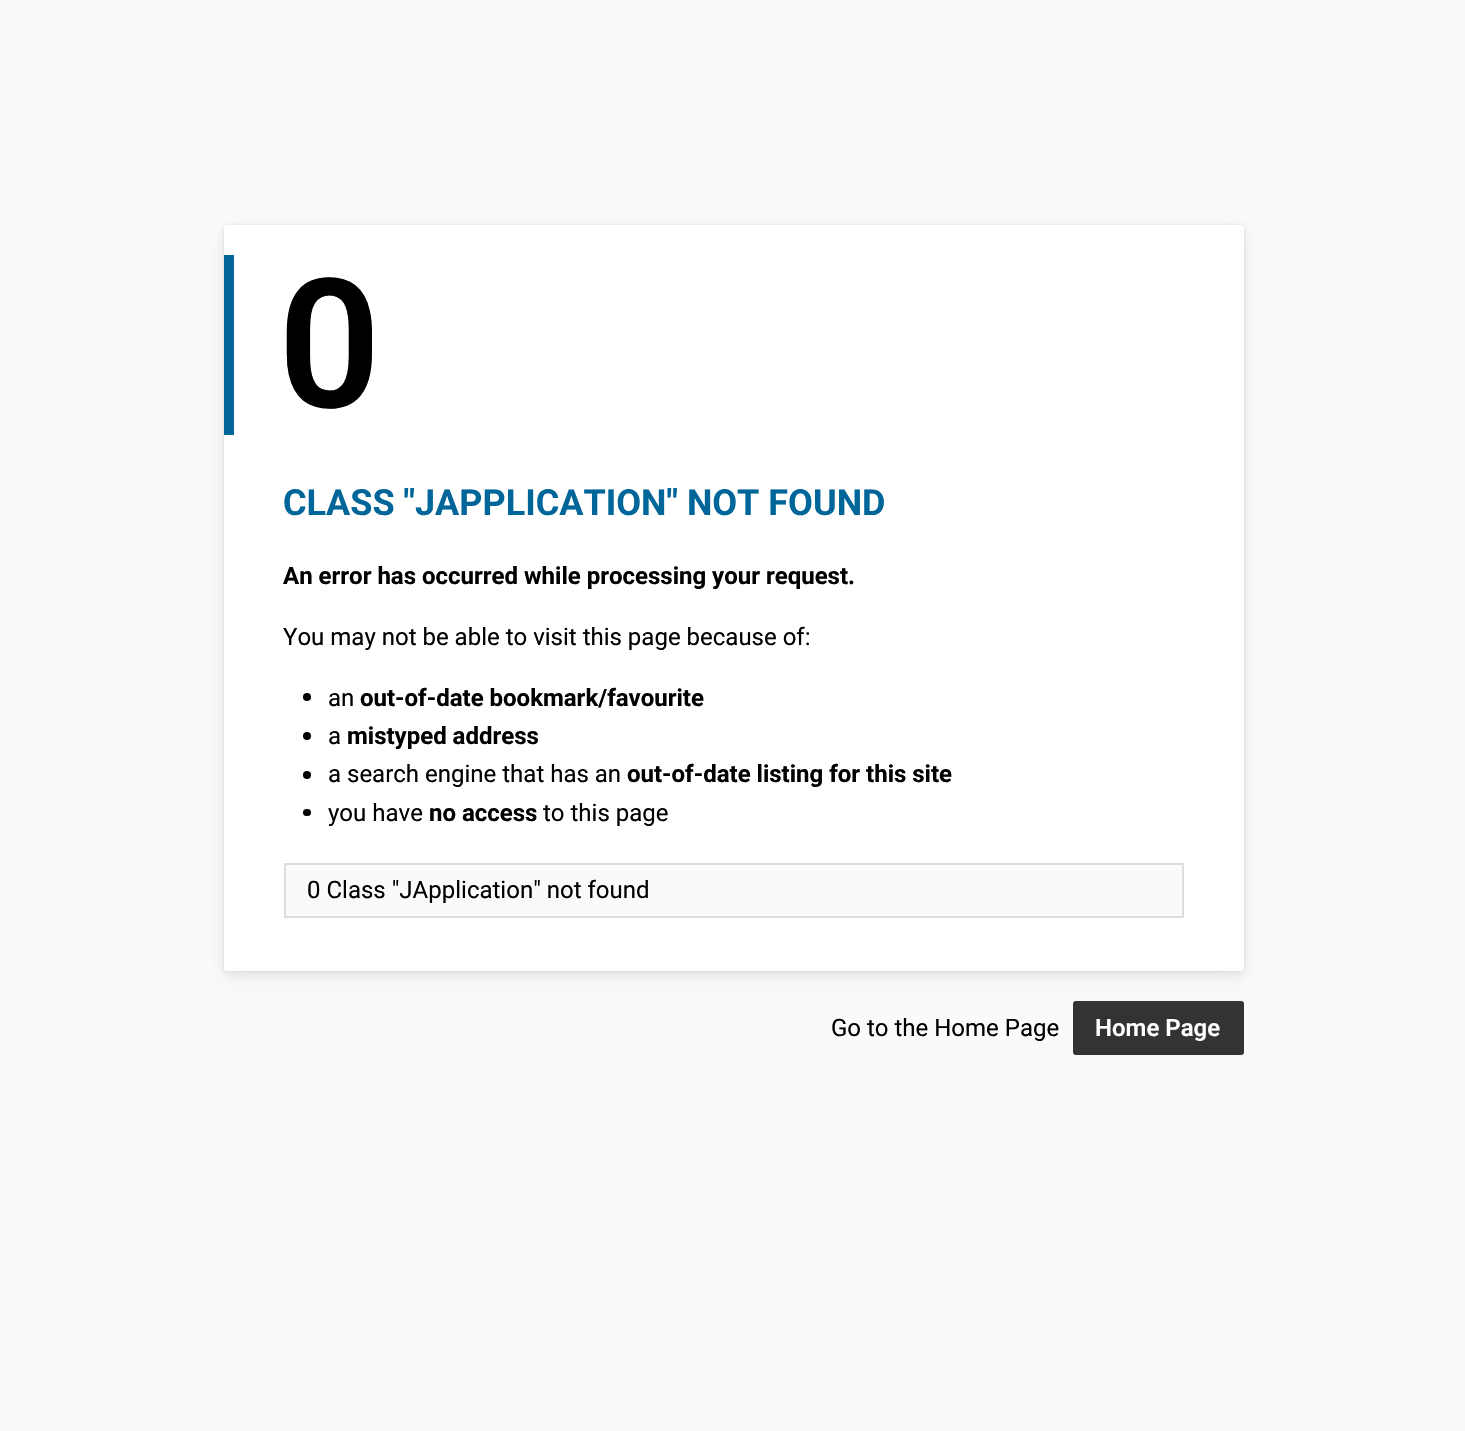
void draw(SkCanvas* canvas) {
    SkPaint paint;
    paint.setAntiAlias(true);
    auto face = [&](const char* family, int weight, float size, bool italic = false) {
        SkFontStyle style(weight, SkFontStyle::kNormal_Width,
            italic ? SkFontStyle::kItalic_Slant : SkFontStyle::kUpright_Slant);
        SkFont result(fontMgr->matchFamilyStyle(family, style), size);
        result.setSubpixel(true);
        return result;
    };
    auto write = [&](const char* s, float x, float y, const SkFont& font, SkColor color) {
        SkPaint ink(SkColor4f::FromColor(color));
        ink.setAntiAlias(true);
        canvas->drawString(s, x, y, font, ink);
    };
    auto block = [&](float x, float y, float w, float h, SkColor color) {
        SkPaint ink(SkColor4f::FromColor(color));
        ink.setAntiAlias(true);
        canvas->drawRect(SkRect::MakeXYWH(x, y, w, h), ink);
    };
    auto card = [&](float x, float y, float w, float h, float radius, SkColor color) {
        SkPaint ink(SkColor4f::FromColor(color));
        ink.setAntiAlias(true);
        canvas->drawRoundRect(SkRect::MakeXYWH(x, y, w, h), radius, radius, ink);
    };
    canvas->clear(SkColorSetRGB(250, 250, 250));
    card(1073, 1001, 171, 54, 3, SkColorSetRGB(51, 51, 51));
    paint.setColor(SkColorSetARGB(20, 52, 58, 67));
    paint.setMaskFilter(SkMaskFilter::MakeBlur(kNormal_SkBlurStyle, 11));
    canvas->drawRoundRect(SkRect::MakeXYWH(224, 233, 1020, 745), 3, 3, paint);
    paint.setMaskFilter(nullptr);
    paint.setMaskFilter(SkMaskFilter::MakeBlur(kNormal_SkBlurStyle, 4));
    canvas->drawRoundRect(SkRect::MakeXYWH(224, 228, 1020, 746), 3, 3, paint);
    paint.setMaskFilter(nullptr);
    paint.setColor(SkColorSetARGB(26, 52, 58, 67));
    paint.setMaskFilter(SkMaskFilter::MakeBlur(kNormal_SkBlurStyle, 1.5f));
    canvas->drawRoundRect(SkRect::MakeXYWH(224, 225, 1020, 746), 3, 3, paint);
    paint.setMaskFilter(nullptr);
    card(224, 225, 1020, 746, 3, SK_ColorWHITE);
    block(224, 255, 10, 180, SkColorSetRGB(0, 102, 153));
    auto kFont1 = face("Roboto", 600, 180);
    write("0", 278, 407, kFont1, SK_ColorBLACK);
    auto kFont2 = face("Roboto", 700, 36);
    write("CLASS \"JAPPLICATION\" NOT FOUND", 283, 515, kFont2, SkColorSetRGB(0, 102, 153));
    auto kFont3 = face("Roboto", 700, 24);
    write("An error has occurred while processing your request.", 283, 584, kFont3, SK_ColorBLACK);
    auto kFont4 = face("Roboto", 400, 24);
    write("You may not be able to visit this page because of:", 283, 645, kFont4, SK_ColorBLACK);
    paint.setColor(SK_ColorBLACK);
    canvas->drawCircle(307, 697, 4, paint);
    write("an", 328, 706, kFont4, SK_ColorBLACK);
    write("out-of-date bookmark/favourite", 360, 706, kFont3, SK_ColorBLACK);
    canvas->drawCircle(307, 736, 4, paint);
    write("a", 328, 744, kFont4, SK_ColorBLACK);
    write("mistyped address", 347, 744, kFont3, SK_ColorBLACK);
    canvas->drawCircle(307, 775, 4, paint);
    write("a search engine that has an", 328, 782, kFont4, SK_ColorBLACK);
    write("out-of-date listing for this site", 627, 782, kFont3, SK_ColorBLACK);
    card(303, 809, 8, 7, 3.5f, SK_ColorBLACK);
    write("you have", 328, 821, kFont4, SK_ColorBLACK);
    write("no access", 429, 821, kFont3, SK_ColorBLACK);
    write("to this page", 543, 821, kFont4, SK_ColorBLACK);
    paint.setColor(SkColorSetRGB(250, 250, 250));
    canvas->drawRect(SkRect::MakeXYWH(285, 864, 898, 53), paint);
    paint.setStyle(SkPaint::kStroke_Style);
    paint.setStrokeWidth(2);
    paint.setColor(SkColorSetRGB(221, 221, 221));
    canvas->drawRect(SkRect::MakeXYWH(285, 864, 898, 53), paint);
    write("0 Class \"JApplication\" not found", 307, 898, kFont4, SK_ColorBLACK);
    write("Go to the Home Page", 831, 1036, kFont4, SK_ColorBLACK);
    auto kFont5 = face("Roboto", 600, 24);
    write("Home Page", 1095, 1036, kFont5, SK_ColorWHITE);
}
